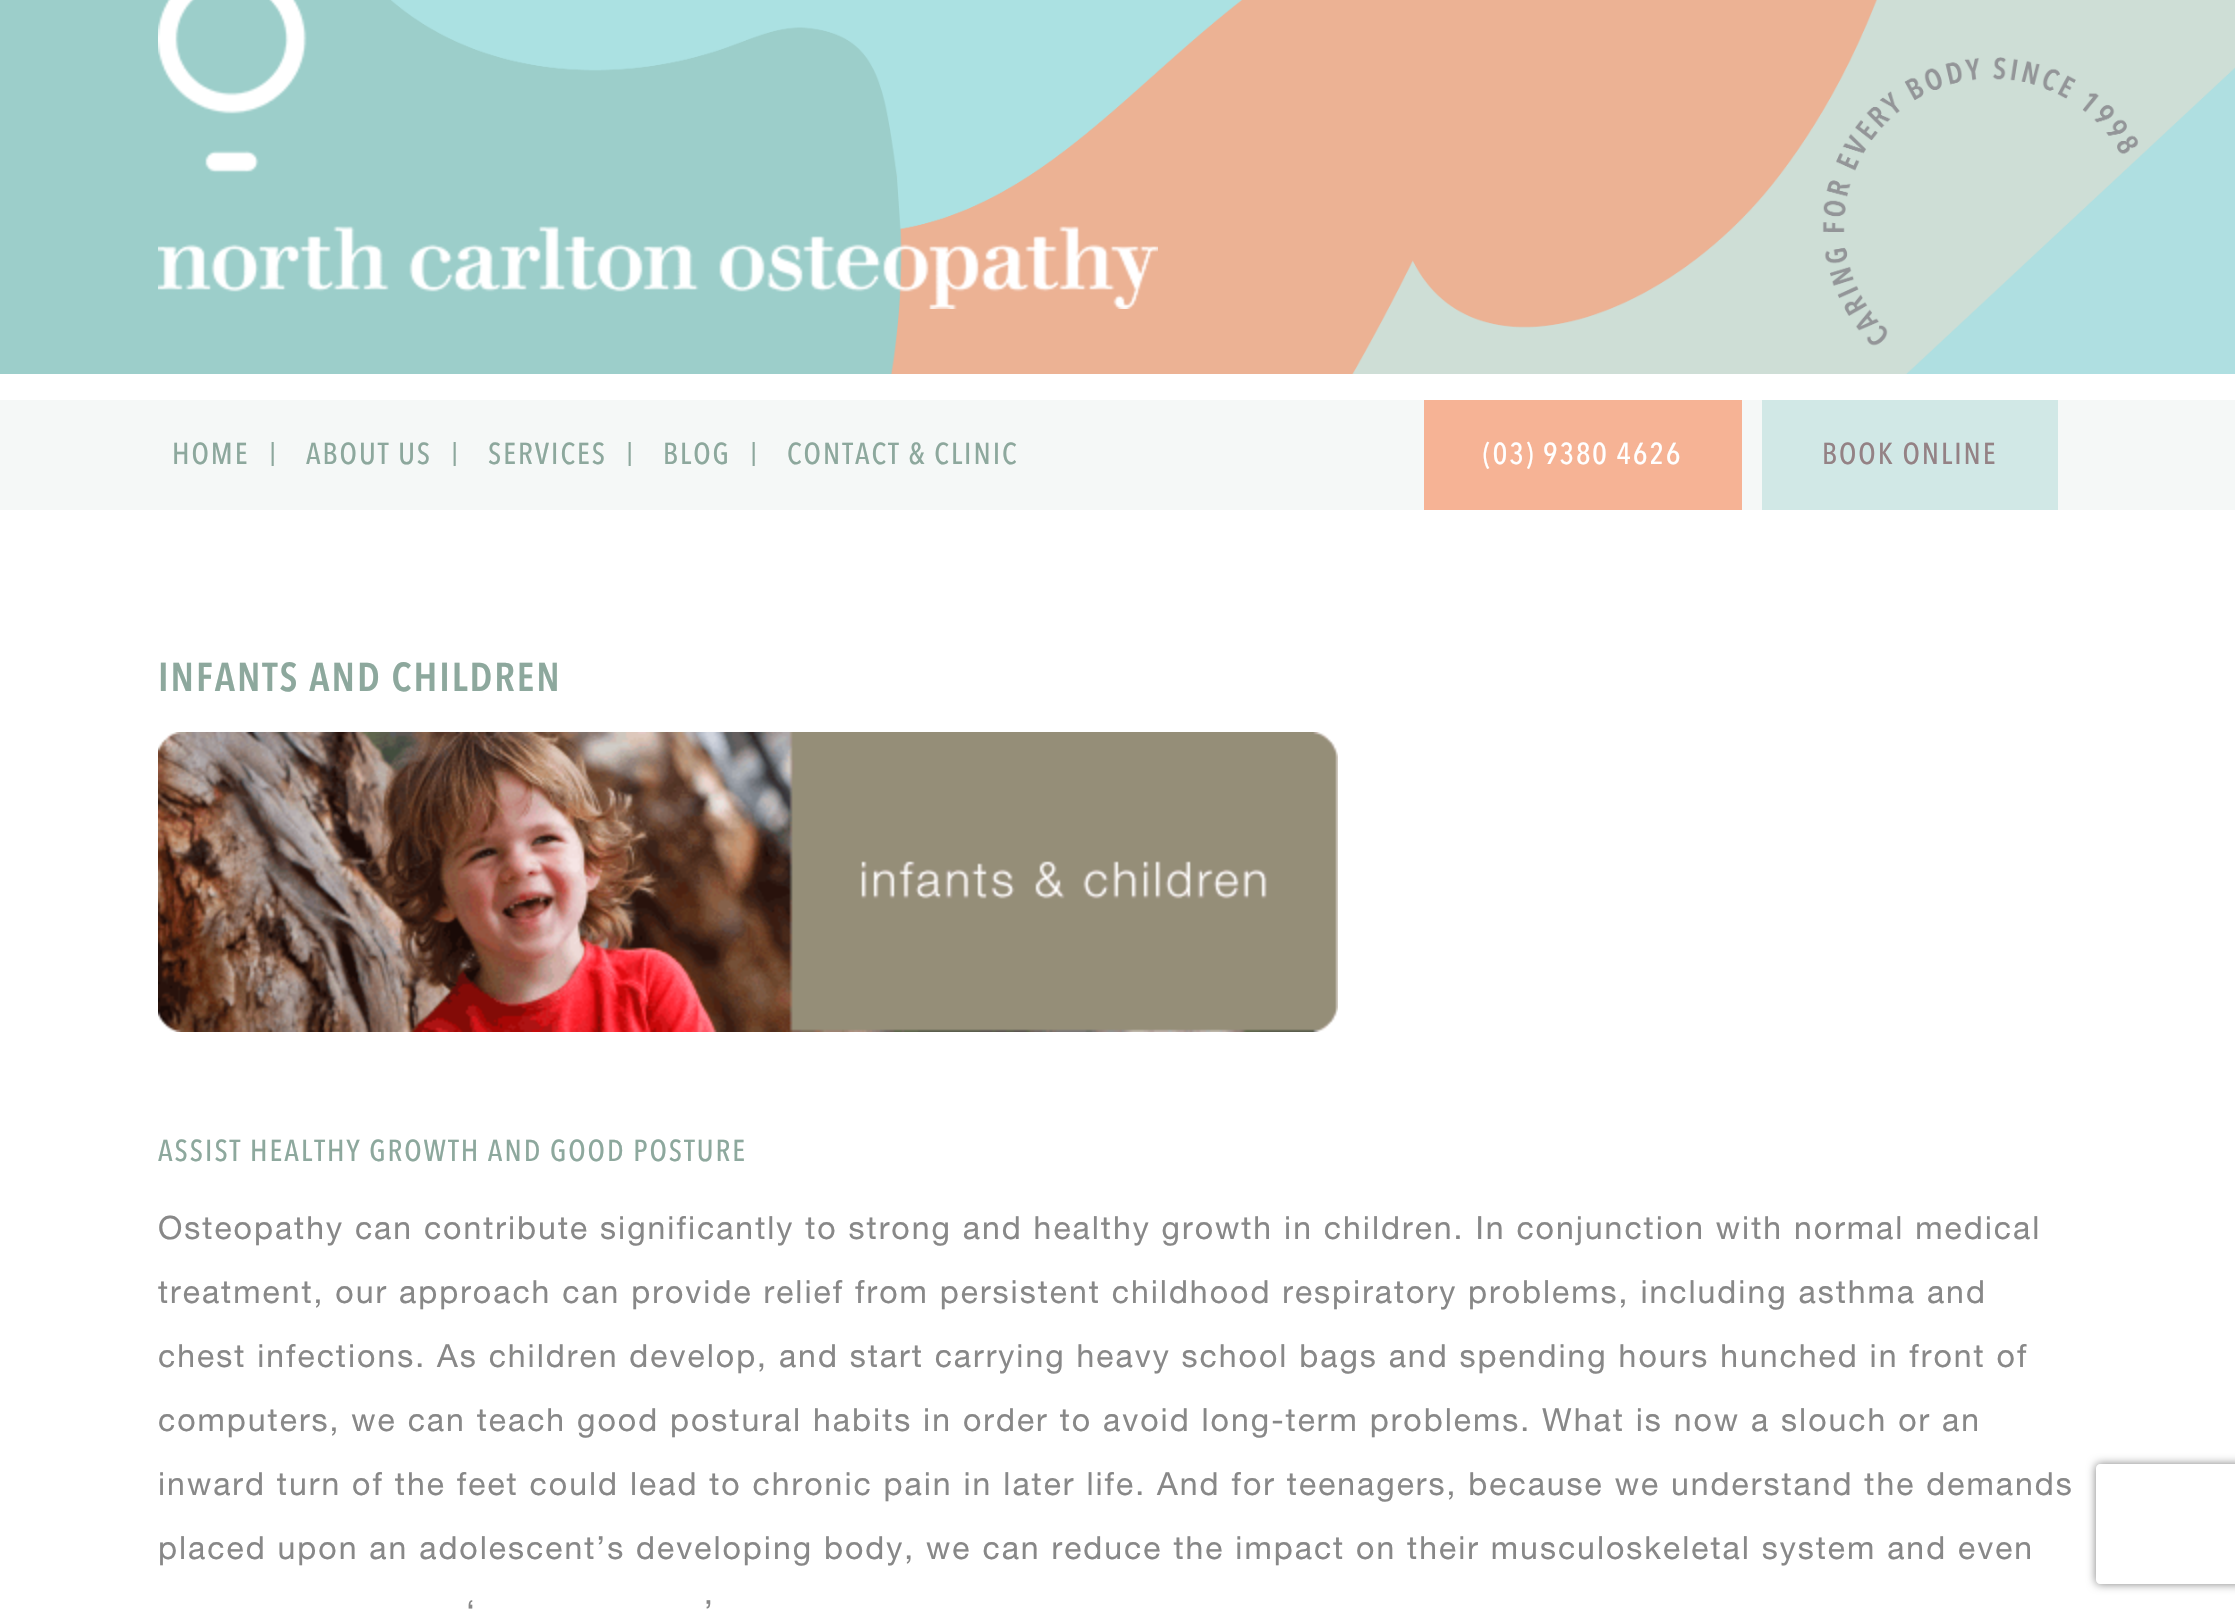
void draw(SkCanvas* canvas) {
    SkPaint paint;
    paint.setAntiAlias(true);
    auto face = [&](const char* family, int weight, float size, bool italic = false) {
        SkFontStyle style(weight, SkFontStyle::kNormal_Width,
            italic ? SkFontStyle::kItalic_Slant : SkFontStyle::kUpright_Slant);
        SkFont result(fontMgr->matchFamilyStyle(family, style), size);
        result.setSubpixel(true);
        return result;
    };
    auto writeSpaced = [&](const char* s, float x, float y, const SkFont& font, const SkPaint& ink, float letter, float word) {
        std::vector<SkGlyphID> glyphs(font.countText(s, strlen(s), SkTextEncoding::kUTF8));
        std::vector<float> xs(glyphs.size());
        font.textToGlyphs(s, strlen(s), SkTextEncoding::kUTF8, glyphs);
        font.getXPos(glyphs, xs, x);
        float extra = 0;
        for (size_t i = 0; i < glyphs.size(); i++) {
            xs[i] += extra;
            extra += letter + word * (glyphs[i] == font.unicharToGlyph(' '));
        }
        canvas->drawTextBlob(SkTextBlob::MakeFromPosHGlyphs(glyphs, xs, y, font), 0, 0, ink);
    };
    auto block = [&](float x, float y, float w, float h, SkColor color) {
        SkPaint ink(SkColor4f::FromColor(color));
        ink.setAntiAlias(true);
        canvas->drawRect(SkRect::MakeXYWH(x, y, w, h), ink);
    };
    auto paste = [&](const char* path, float x, float y, float w, float h) {
        auto image = SkImages::DeferredFromEncodedData(SkData::MakeFromFileName(path));
        canvas->drawImageRect(image, SkRect::MakeXYWH(x, y, w, h), SkSamplingOptions());
    };
    canvas->clear(SK_ColorWHITE);
    paste("pic1.png", 0, 0, 2235, 374);
    paste("pic2.png", 158, 0, 1000, 309);
    block(0, 400, 2235, 110, SkColorSetRGB(245, 248, 247));
    auto kFont1 = face("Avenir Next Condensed", 500, 30);
    paint.setColor(SkColorSetRGB(141, 168, 157));
    writeSpaced("HOME", 172, 464, kFont1, paint, 2, 0);
    auto kFont2 = face("Avenir Next Condensed", 500, 24);
    writeSpaced("|", 270, 460, kFont2, paint, 2, 0);
    writeSpaced("ABOUT US", 306, 464, kFont1, paint, 2, 0);
    writeSpaced("|", 452, 460, kFont2, paint, 2, 0);
    writeSpaced("SERVICES", 488, 464, kFont1, paint, 2, 0);
    writeSpaced("|", 627, 460, kFont2, paint, 2, 0);
    writeSpaced("BLOG", 663, 464, kFont1, paint, 2, 0);
    writeSpaced("|", 751, 460, kFont2, paint, 2, 0);
    writeSpaced("CONTACT & CLINIC", 787, 464, kFont1, paint, 2, 0);
    block(1424, 400, 318, 110, SkColorSetRGB(246, 179, 149));
    paint.setColor(SK_ColorWHITE);
    writeSpaced("(03) 9380 4626", 1483, 464, kFont1, paint, 2, 0);
    block(1762, 400, 296, 110, SkColorSetRGB(209, 232, 230));
    paint.setColor(SkColorSetRGB(148, 130, 133));
    writeSpaced("BOOK ONLINE", 1822, 464, kFont1, paint, 2, 0);
    auto kFont3 = face("Avenir Next Condensed", 600, 40);
    paint.setColor(SkColorSetRGB(141, 168, 157));
    writeSpaced("INFANTS AND CHILDREN", 158, 691, kFont3, paint, 2, 0);
    paste("pic3.png", 158, 732, 1180, 300);
    writeSpaced("ASSIST HEALTHY GROWTH AND GOOD POSTURE", 158, 1161, kFont1, paint, 2, 0);
    auto kFont4 = face("Helvetica Neue", 400, 32);
    paint.setColor(SkColorSetRGB(136, 136, 136));
    writeSpaced("Osteopathy can contribute significantly to strong and healthy growth in children. In conjunction with normal medical", 158, 1239, kFont4, paint, 2, 0);
    writeSpaced("treatment, our approach can provide relief from persistent childhood respiratory problems, including asthma and", 158, 1303, kFont4, paint, 2, 0);
    writeSpaced("chest infections. As children develop, and start carrying heavy school bags and spending hours hunched in front of", 158, 1367, kFont4, paint, 2, 0);
    writeSpaced("computers, we can teach good postural habits in order to avoid long-term problems. What is now a slouch or an", 158, 1431, kFont4, paint, 2, 0);
    writeSpaced("inward turn of the feet could lead to chronic pain in later life. And for teenagers, because we understand the demands", 158, 1495, kFont4, paint, 2, 0);
    writeSpaced("placed upon an adolescent’s developing body, we can reduce the impact on their musculoskeletal system and even", 158, 1559, kFont4, paint, 2, 0);
    writeSpaced("‘", 466, 1623, kFont4, paint, 2, 0);
    writeSpaced("’", 704, 1623, kFont4, paint, 2, 0);
    canvas->save();
    canvas->clipPath(SkPathBuilder(SkPathFillType::kEvenOdd).moveTo(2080, 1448).lineTo(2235, 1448).lineTo(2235, 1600).lineTo(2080, 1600).close().moveTo(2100, 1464).lineTo(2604, 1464).cubicTo(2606, 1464, 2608, 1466, 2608, 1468).lineTo(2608, 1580).cubicTo(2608, 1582, 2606, 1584, 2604, 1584).lineTo(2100, 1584).cubicTo(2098, 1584, 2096, 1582, 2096, 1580).lineTo(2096, 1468).cubicTo(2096, 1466, 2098, 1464, 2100, 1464).close().detach(), true);
    paint.setColor(SkColorSetRGB(128, 128, 128));
    paint.setMaskFilter(SkMaskFilter::MakeBlur(kNormal_SkBlurStyle, 5));
    canvas->drawRoundRect(SkRect::MakeXYWH(2096, 1464, 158, 120), 4, 4, paint);
    paint.setMaskFilter(nullptr);
    canvas->restore();
}
